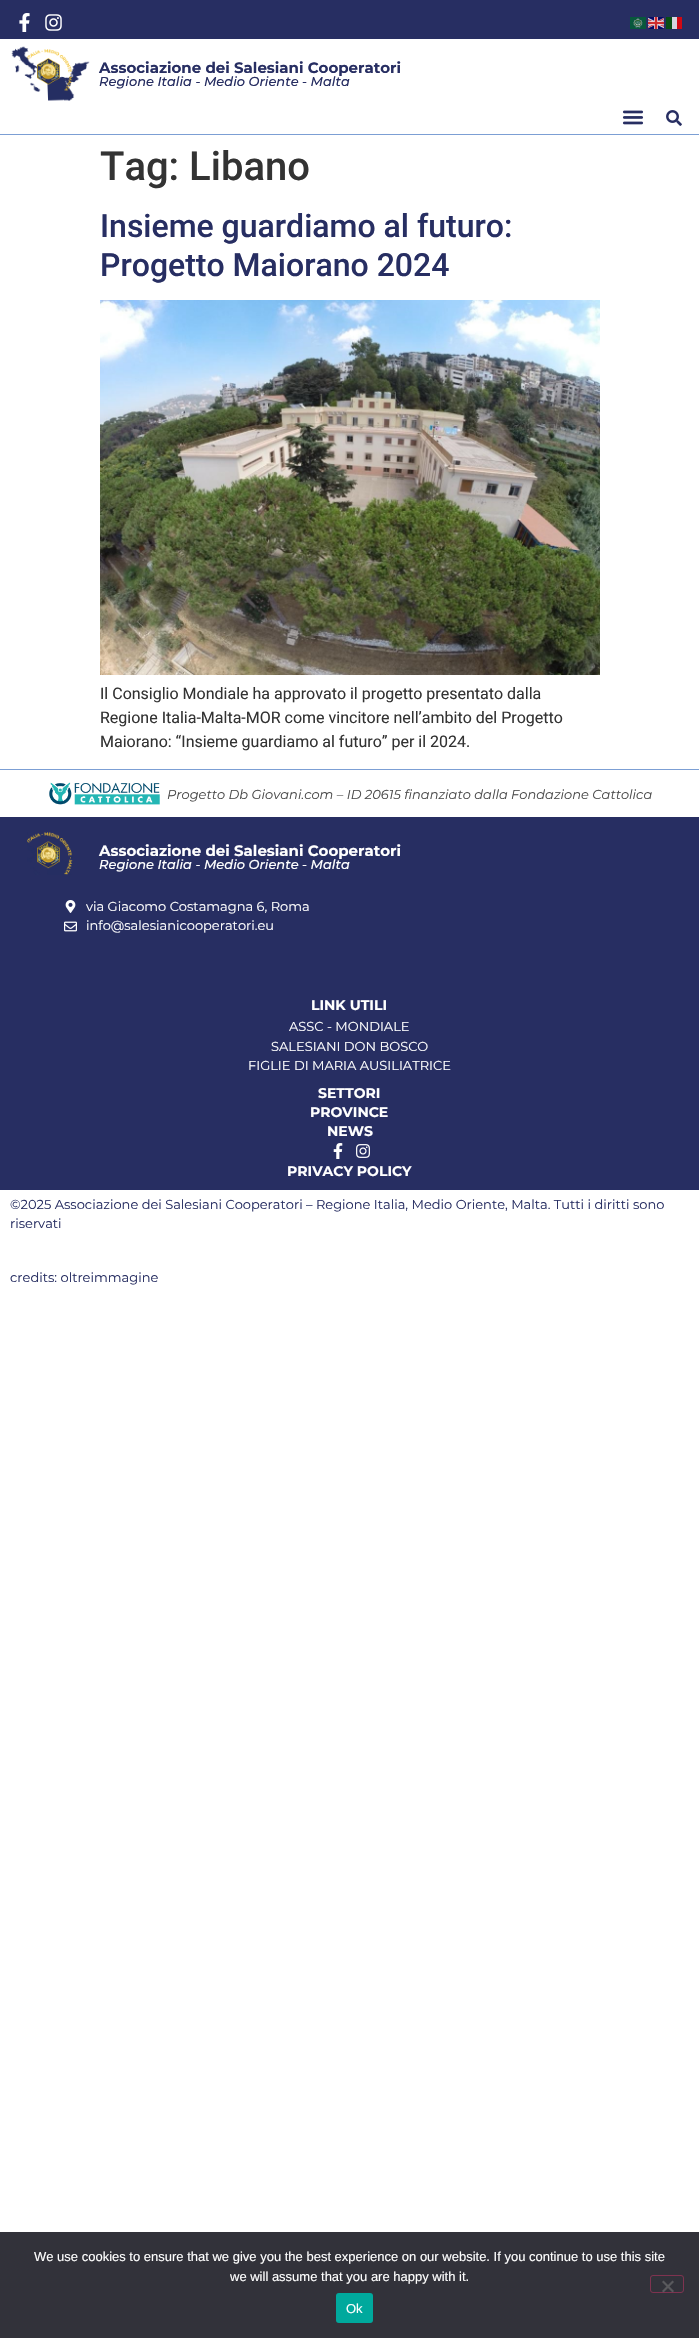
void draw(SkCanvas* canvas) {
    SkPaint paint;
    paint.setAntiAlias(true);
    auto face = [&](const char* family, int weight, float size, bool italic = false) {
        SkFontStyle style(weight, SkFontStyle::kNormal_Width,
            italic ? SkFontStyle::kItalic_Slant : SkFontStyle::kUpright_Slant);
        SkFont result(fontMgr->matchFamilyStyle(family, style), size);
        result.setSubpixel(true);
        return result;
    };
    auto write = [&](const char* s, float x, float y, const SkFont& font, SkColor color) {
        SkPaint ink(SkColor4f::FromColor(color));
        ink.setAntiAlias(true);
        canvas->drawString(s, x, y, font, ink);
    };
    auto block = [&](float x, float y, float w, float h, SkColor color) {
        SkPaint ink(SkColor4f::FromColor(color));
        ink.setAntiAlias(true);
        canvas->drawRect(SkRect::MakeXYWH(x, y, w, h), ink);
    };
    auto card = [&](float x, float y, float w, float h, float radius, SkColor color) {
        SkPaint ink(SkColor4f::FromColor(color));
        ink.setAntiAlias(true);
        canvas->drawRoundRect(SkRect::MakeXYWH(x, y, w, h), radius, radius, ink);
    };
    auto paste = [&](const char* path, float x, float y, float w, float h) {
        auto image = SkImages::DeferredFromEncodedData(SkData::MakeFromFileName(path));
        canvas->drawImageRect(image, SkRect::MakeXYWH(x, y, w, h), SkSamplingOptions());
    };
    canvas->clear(SK_ColorWHITE);
    block(0, 0, 699, 39, SkColorSetRGB(39, 46, 98));
    paste("pic1.png", 19, 13, 11, 19);
    paste("pic2.png", 45, 14, 17, 17);
    paste("pic3.png", 630, 17, 16, 12);
    paste("pic4.png", 648, 17, 16, 12);
    block(666, 17, 6, 12, SkColorSetRGB(8, 79, 20));
    block(672, 17, 5, 12, SkColorSetRGB(212, 213, 224));
    block(677, 17, 5, 12, SkColorSetRGB(209, 9, 20));
    block(0, 134, 699, 1, SkColorSetRGB(124, 159, 212));
    paste("pic5.png", 11, 46, 79, 55);
    auto kFont1 = face("Montserrat", 700, 15);
    write("Associazione dei Salesiani Cooperatori", 99, 73, kFont1, SkColorSetRGB(39, 46, 98));
    auto kFont2 = face("Montserrat", 500, 13, true);
    write("Regione Italia - Medio Oriente - Malta", 99, 86, kFont2, SkColorSetRGB(39, 46, 98));
    paste("pic6.png", 622, 110, 22, 15);
    paste("pic7.png", 666, 110, 16, 16);
    auto kFont3 = face("Roboto", 500, 40);
    write("Tag: Libano", 100, 180, kFont3, SkColorSetRGB(51, 51, 51));
    auto kFont4 = face("Roboto", 500, 32);
    write("Insieme guardiamo al futuro:", 100, 237, kFont4, SkColorSetRGB(39, 46, 98));
    write("Progetto Maiorano 2024", 100, 276, kFont4, SkColorSetRGB(39, 46, 98));
    paste("pic8.png", 100, 300, 500, 375);
    auto kFont5 = face("Roboto", 400, 16);
    write("Il Consiglio Mondiale ha approvato il progetto presentato dalla", 100, 699, kFont5, SkColorSetRGB(51, 51, 51));
    write("Regione Italia-Malta-MOR come vincitore nell’ambito del Progetto", 100, 723, kFont5, SkColorSetRGB(51, 51, 51));
    write("Maiorano: “Insieme guardiamo al futuro” per il 2024.", 100, 747, kFont5, SkColorSetRGB(51, 51, 51));
    block(0, 769, 699, 1, SkColorSetRGB(124, 159, 212));
    paste("pic9.png", 49, 782, 111, 23);
    auto kFont6 = face("Montserrat", 400, 13, true);
    write("Progetto Db Giovani.com – ID 20615 finanziato dalla Fondazione Cattolica", 167, 799, kFont6, SkColorSetRGB(75, 75, 75));
    block(0, 817, 699, 373, SkColorSetRGB(39, 46, 98));
    paste("pic10.png", 27, 832, 46, 43);
    write("Associazione dei Salesiani Cooperatori", 99, 856, kFont1, SK_ColorWHITE);
    write("Regione Italia - Medio Oriente - Malta", 99, 869, kFont2, SK_ColorWHITE);
    paste("pic11.png", 65, 900, 11, 13);
    auto kFont7 = face("Montserrat", 400, 13);
    write("via Giacomo Costamagna 6, Roma", 86, 911, kFont7, SK_ColorWHITE);
    paste("pic12.png", 64, 921, 13, 11);
    write("info@salesianicooperatori.eu", 86, 930, kFont7, SK_ColorWHITE);
    auto kFont8 = face("Montserrat", 700, 14);
    write("LINK UTILI", 311, 1010, kFont8, SK_ColorWHITE);
    write("ASSC - MONDIALE", 289, 1031, kFont7, SK_ColorWHITE);
    write("SALESIANI DON BOSCO", 271, 1051, kFont7, SK_ColorWHITE);
    write("FIGLIE DI MARIA AUSILIATRICE", 248, 1070, kFont7, SK_ColorWHITE);
    write("SETTORI", 318, 1098, kFont8, SK_ColorWHITE);
    write("PROVINCE", 310, 1117, kFont8, SK_ColorWHITE);
    write("NEWS", 327, 1136, kFont8, SK_ColorWHITE);
    paste("pic13.png", 333, 1143, 10, 16);
    paste("pic14.png", 356, 1144, 14, 14);
    write("PRIVACY POLICY", 287, 1176, kFont8, SK_ColorWHITE);
    write("©2025 Associazione dei Salesiani Cooperatori – Regione Italia, Medio Oriente, Malta. Tutti i diritti sono", 10, 1209, kFont7, SkColorSetRGB(39, 46, 98));
    write("riservati", 10, 1228, kFont7, SkColorSetRGB(39, 46, 98));
    write("credits: oltreimmagine", 10, 1282, kFont7, SkColorSetRGB(39, 46, 98));
    block(0, 2232, 699, 106, SkColorSetRGB(50, 50, 58));
    auto kFont9 = face("Liberation Sans", 400, 13);
    write("We use cookies to ensure that we give you the best experience on our website. If you continue to use this site", 34, 2261, kFont9, SK_ColorWHITE);
    write("we will assume that you are happy with it.", 230, 2281, kFont9, SK_ColorWHITE);
    paint.setStyle(SkPaint::kStroke_Style);
    paint.setStrokeWidth(1);
    paint.setColor(SkColorSetRGB(127, 51, 80));
    canvas->drawRoundRect(SkRect::MakeXYWH(650.5f, 2275.5f, 33, 17), 2.5f, 2.5f, paint);
    paint.setStyle(SkPaint::kFill_Style);
    paint.setColor(SkColorSetRGB(89, 89, 93));
    canvas->drawPath(SkPathBuilder().moveTo(672.5f, 2280.5f).lineTo(674, 2282).lineTo(663.5f, 2292.5f).lineTo(662, 2291).close().detach(), paint);
    canvas->drawPath(SkPathBuilder().moveTo(662, 2282).lineTo(663.5f, 2280.5f).lineTo(674, 2291).lineTo(672.5f, 2292.5f).close().detach(), paint);
    card(336, 2293, 37, 30, 3, SkColorSetRGB(0, 169, 157));
    write("Ok", 346, 2313, kFont9, SK_ColorWHITE);
}
